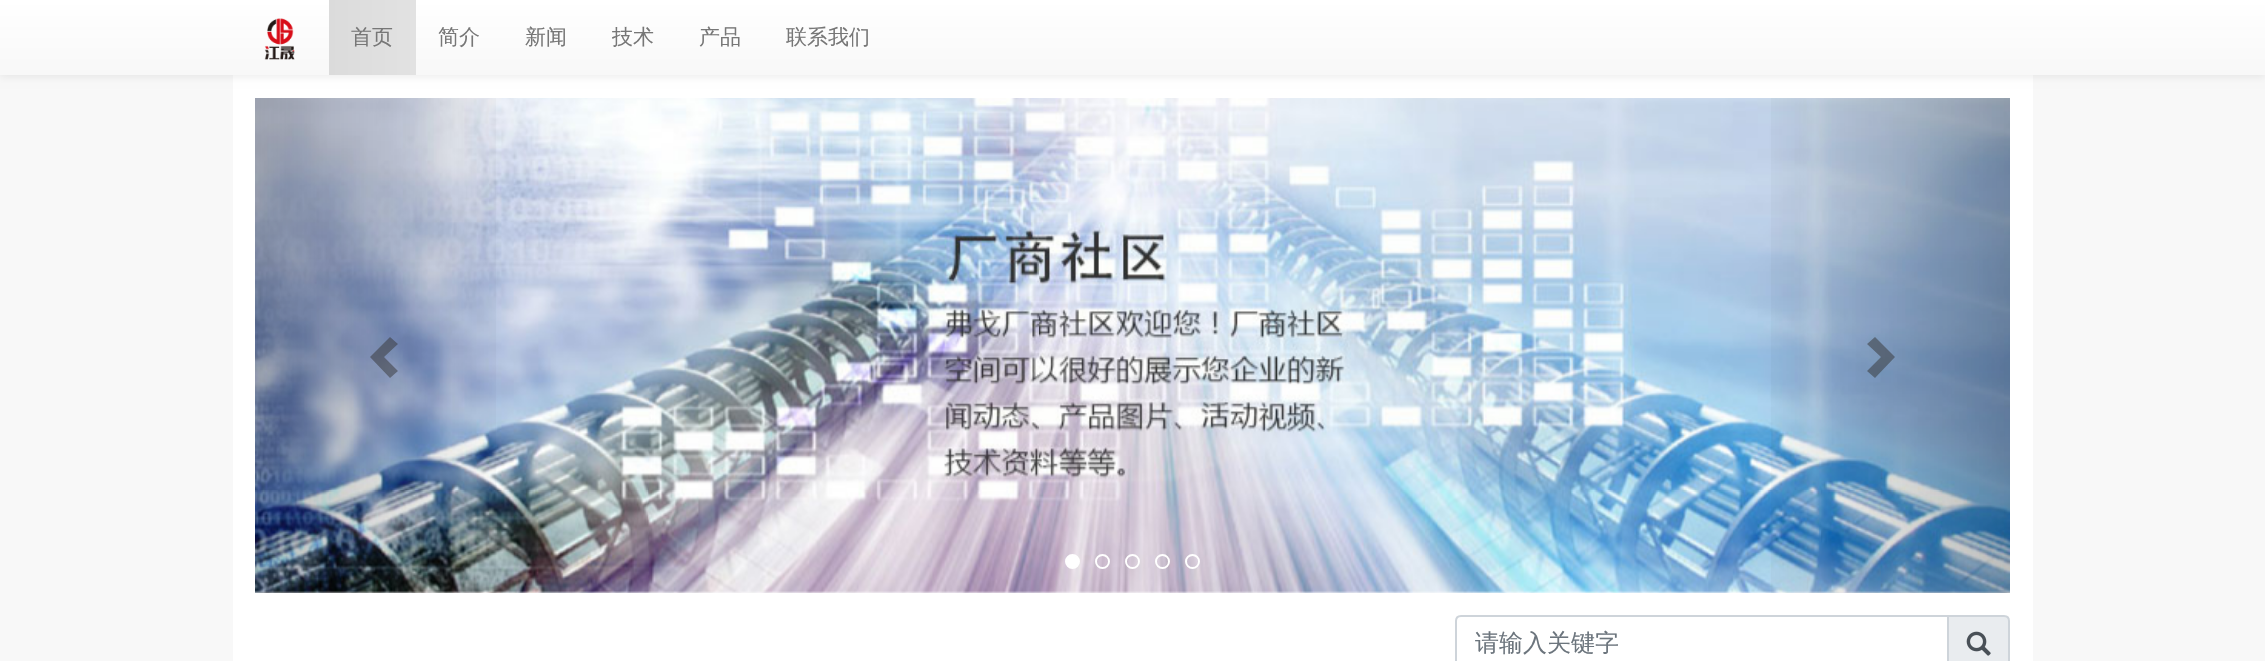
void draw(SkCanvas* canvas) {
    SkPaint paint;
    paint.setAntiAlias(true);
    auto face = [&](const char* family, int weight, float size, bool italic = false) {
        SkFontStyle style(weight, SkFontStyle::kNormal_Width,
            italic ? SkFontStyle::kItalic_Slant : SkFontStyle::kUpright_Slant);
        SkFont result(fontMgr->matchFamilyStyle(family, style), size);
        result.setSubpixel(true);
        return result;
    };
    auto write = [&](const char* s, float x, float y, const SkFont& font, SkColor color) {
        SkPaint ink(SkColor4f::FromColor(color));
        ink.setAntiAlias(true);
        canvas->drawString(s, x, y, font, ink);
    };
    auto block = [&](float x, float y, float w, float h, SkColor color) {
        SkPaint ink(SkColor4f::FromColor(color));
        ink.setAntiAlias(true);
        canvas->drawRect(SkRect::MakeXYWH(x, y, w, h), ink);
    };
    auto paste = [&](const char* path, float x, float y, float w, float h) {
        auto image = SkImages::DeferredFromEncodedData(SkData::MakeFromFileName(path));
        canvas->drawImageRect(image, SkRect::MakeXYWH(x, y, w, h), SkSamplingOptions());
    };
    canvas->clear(SkColorSetRGB(248, 248, 248));
    block(233, 75, 1800, 586, SK_ColorWHITE);
    paint.setColor(SkColorSetARGB(18, 0, 0, 0));
    paint.setMaskFilter(SkMaskFilter::MakeBlur(kNormal_SkBlurStyle, 4));
    canvas->drawRect(SkRect::MakeXYWH(0, 2, 2265, 75), paint);
    paint.setMaskFilter(nullptr);
    {
        const SkColor colors[] = {SK_ColorWHITE, SkColorSetRGB(248, 248, 248)};
        const float stops[] = {0, 1};
        const SkPoint ends[] = {{1133, 0}, {1133, 75}};
        paint.setShader(SkGradientShader::MakeLinear(ends, colors, stops, 2, SkTileMode::kClamp));
        paint.setAlpha(255);
    }
    canvas->drawRect(SkRect::MakeXYWH(0, 0, 2265, 75), paint);
    paste("pic1.png", 264, 18, 31, 42);
    {
        const SkColor colors[] = {SkColorSetRGB(219, 219, 219), SkColorSetRGB(226, 226, 226)};
        const float stops[] = {0, 1};
        const SkPoint ends[] = {{329, 38}, {416, 38}};
        paint.setShader(SkGradientShader::MakeLinear(ends, colors, stops, 2, SkTileMode::kClamp));
        paint.setAlpha(255);
    }
    canvas->drawRect(SkRect::MakeXYWH(329, 0, 87, 75), paint);
    auto kFont1 = face("WenQuanYi Zen Hei", 500, 21);
    write("首页", 351, 44, kFont1, SkColorSetRGB(119, 119, 119));
    write("简介", 438, 44, kFont1, SkColorSetRGB(119, 119, 119));
    write("新闻", 525, 44, kFont1, SkColorSetRGB(119, 119, 119));
    write("技术", 612, 44, kFont1, SkColorSetRGB(119, 119, 119));
    write("产品", 699, 44, kFont1, SkColorSetRGB(119, 119, 119));
    write("联系我们", 786, 44, kFont1, SkColorSetRGB(119, 119, 119));
    paste("pic2.png", 255, 98, 1755, 495);
    {
        const SkColor colors[] = {SkColorSetARGB(64, 0, 0, 0), SkColorSetARGB(0, 0, 0, 0)};
        const float stops[] = {0, 1};
        const SkPoint ends[] = {{255, 345}, {519, 345}};
        paint.setShader(SkGradientShader::MakeLinear(ends, colors, stops, 2, SkTileMode::kClamp));
        paint.setAlpha(255);
    }
    canvas->drawRect(SkRect::MakeXYWH(255, 98, 241, 495), paint);
    paint.setShader(nullptr);
    paint.setColor(SkColorSetARGB(128, 51, 51, 51));
    canvas->drawPath(SkPathBuilder().moveTo(398, 344).lineTo(384, 357).lineTo(398, 371).lineTo(390, 378).lineTo(370, 357).lineTo(390, 337).close().detach(), paint);
    paint.setColor(SK_ColorWHITE);
    canvas->drawCircle(1072.5f, 561.5f, 6.5f, paint);
    paint.setStyle(SkPaint::kStroke_Style);
    paint.setStrokeWidth(2);
    canvas->drawCircle(1072.5f, 561.5f, 6.5f, paint);
    canvas->drawCircle(1102.5f, 561.5f, 6.5f, paint);
    canvas->drawCircle(1132.5f, 561.5f, 6.5f, paint);
    canvas->drawCircle(1162.5f, 561.5f, 6.5f, paint);
    canvas->drawCircle(1192.5f, 561.5f, 6.5f, paint);
    paint.setStyle(SkPaint::kFill_Style);
    {
        const SkColor colors[] = {SkColorSetARGB(0, 0, 0, 0), SkColorSetARGB(64, 0, 0, 0)};
        const float stops[] = {0, 1};
        const SkPoint ends[] = {{1748, 345}, {2010, 345}};
        paint.setShader(SkGradientShader::MakeLinear(ends, colors, stops, 2, SkTileMode::kClamp));
        paint.setAlpha(255);
    }
    canvas->drawRect(SkRect::MakeXYWH(1771, 98, 239, 495), paint);
    paint.setShader(nullptr);
    paint.setColor(SkColorSetARGB(128, 51, 51, 51));
    canvas->drawPath(SkPathBuilder().moveTo(1895, 357).lineTo(1875, 378).lineTo(1867, 371).lineTo(1881, 357).lineTo(1867, 344).lineTo(1875, 337).close().detach(), paint);
    paint.setColor(SkColorSetRGB(233, 236, 239));
    canvas->drawPath(SkPathBuilder().moveTo(1948, 616).lineTo(2004, 616).cubicTo(2007, 616, 2009, 618, 2009, 621).lineTo(2009, 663).cubicTo(2009, 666, 2007, 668, 2004, 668).lineTo(1948, 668).close().detach(), paint);
    paint.setStyle(SkPaint::kStroke_Style);
    paint.setColor(SkColorSetRGB(206, 212, 218));
    canvas->drawPath(SkPathBuilder().moveTo(1948, 616).lineTo(2004, 616).cubicTo(2007, 616, 2009, 618, 2009, 621).lineTo(2009, 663).cubicTo(2009, 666, 2007, 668, 2004, 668).lineTo(1948, 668).close().detach(), paint);
    canvas->drawPath(SkPathBuilder().moveTo(1461, 616).lineTo(1948, 616).lineTo(1948, 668).lineTo(1461, 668).cubicTo(1458, 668, 1456, 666, 1456, 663).lineTo(1456, 621).cubicTo(1456, 618, 1458, 616, 1461, 616).close().detach(), paint);
    auto kFont2 = face("WenQuanYi Zen Hei", 500, 24);
    write("请输入关键字", 1475, 651, kFont2, SkColorSetRGB(108, 117, 125));
    paste("pic3.png", 1966, 631, 25, 25);
}
